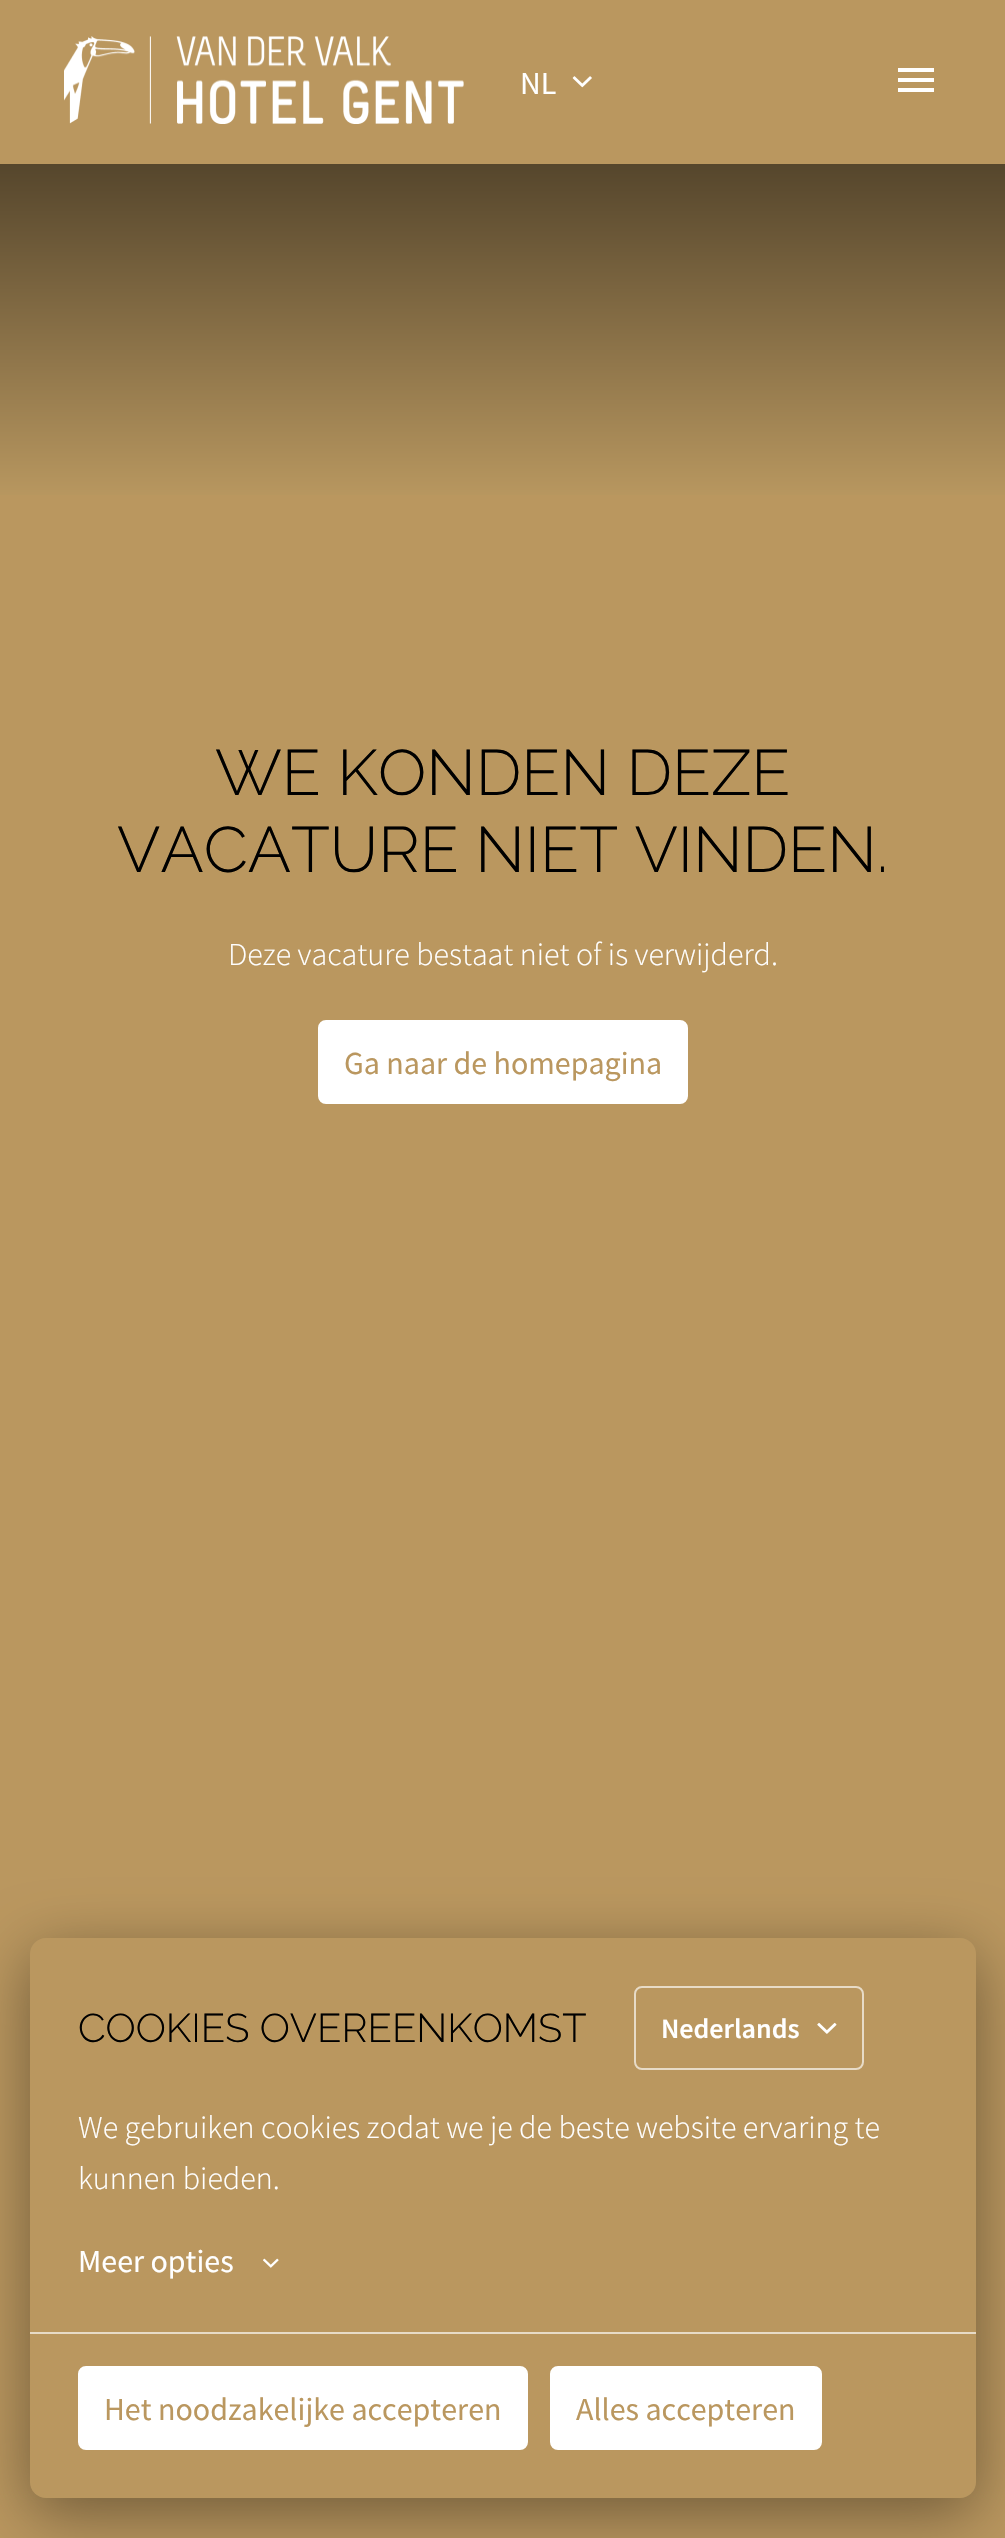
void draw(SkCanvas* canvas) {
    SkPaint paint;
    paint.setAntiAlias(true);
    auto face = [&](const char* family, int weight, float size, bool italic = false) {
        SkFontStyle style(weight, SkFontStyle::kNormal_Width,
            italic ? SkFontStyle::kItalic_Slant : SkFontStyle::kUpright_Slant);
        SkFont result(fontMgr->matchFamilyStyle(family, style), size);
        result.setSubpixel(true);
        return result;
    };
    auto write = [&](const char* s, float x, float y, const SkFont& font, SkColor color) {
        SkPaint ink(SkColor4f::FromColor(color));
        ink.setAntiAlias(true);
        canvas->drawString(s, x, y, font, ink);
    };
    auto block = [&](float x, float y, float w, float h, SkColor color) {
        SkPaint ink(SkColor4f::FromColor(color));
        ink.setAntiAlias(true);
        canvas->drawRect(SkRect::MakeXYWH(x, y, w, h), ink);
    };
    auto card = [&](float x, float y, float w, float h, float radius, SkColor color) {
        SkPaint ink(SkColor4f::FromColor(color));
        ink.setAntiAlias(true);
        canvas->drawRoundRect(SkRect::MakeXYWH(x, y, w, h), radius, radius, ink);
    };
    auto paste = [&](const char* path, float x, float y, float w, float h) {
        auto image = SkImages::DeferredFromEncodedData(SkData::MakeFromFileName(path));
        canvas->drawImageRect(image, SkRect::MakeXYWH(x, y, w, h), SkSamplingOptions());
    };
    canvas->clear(SkColorSetRGB(186, 151, 95));
    paste("pic1.png", 64, 36, 400, 88);
    auto kFont1 = face("Source Sans Pro", 400, 32);
    write("NL", 520, 94, kFont1, SK_ColorWHITE);
    paste("pic2.png", 572, 76, 20, 12);
    paint.setColor(SK_ColorWHITE);
    canvas->drawPath(SkPathBuilder(SkPathFillType::kEvenOdd).moveTo(898, 92).lineTo(934, 92).lineTo(934, 88).lineTo(898, 88).close().moveTo(898, 82).lineTo(934, 82).lineTo(934, 78).lineTo(898, 78).close().moveTo(898, 68).lineTo(898, 72).lineTo(934, 72).lineTo(934, 68).close().detach(), paint);
    {
        const SkColor colors[] = {SkColorSetRGB(37, 30, 19), SkColorSetRGB(185, 152, 96)};
        const float stops[] = {0, 1};
        const SkPoint ends[] = {{503, 0}, {503, 500}};
        paint.setShader(SkGradientShader::MakeLinear(ends, colors, stops, 2, SkTileMode::kClamp));
        paint.setAlpha(255);
    }
    canvas->drawRect(SkRect::MakeXYWH(0, 164, 1005, 331), paint);
    auto kFont2 = face("Raleway", 300, 64);
    write("WE KONDEN DEZE", 215, 795, kFont2, SK_ColorBLACK);
    write("VACATURE NIET VINDEN.", 117, 872, kFont2, SK_ColorBLACK);
    auto kFont3 = face("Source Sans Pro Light", 300, 32);
    write("Deze vacature bestaat niet of is verwijderd.", 228, 965, kFont3, SK_ColorWHITE);
    paint.setShader(nullptr);
    paint.setColor(SK_ColorWHITE);
    canvas->drawRoundRect(SkRect::MakeXYWH(319, 1021, 368, 82), 7, 7, paint);
    paint.setStyle(SkPaint::kStroke_Style);
    paint.setStrokeWidth(2);
    canvas->drawRoundRect(SkRect::MakeXYWH(319, 1021, 368, 82), 7, 7, paint);
    write("Ga naar de homepagina", 344, 1074, kFont1, SkColorSetRGB(186, 151, 95));
    paint.setStyle(SkPaint::kFill_Style);
    paint.setColor(SkColorSetARGB(102, 0, 0, 0));
    paint.setMaskFilter(SkMaskFilter::MakeBlur(kNormal_SkBlurStyle, 32));
    canvas->drawRoundRect(SkRect::MakeXYWH(30, 1954, 946, 560), 16, 16, paint);
    paint.setMaskFilter(nullptr);
    card(30, 1938, 946, 560, 16, SkColorSetRGB(186, 151, 95));
    auto kFont4 = face("Raleway", 300, 40);
    write("COOKIES OVEREENKOMST", 78, 2042, kFont4, SK_ColorBLACK);
    paint.setStyle(SkPaint::kStroke_Style);
    paint.setColor(SkColorSetRGB(231, 219, 199));
    canvas->drawRoundRect(SkRect::MakeXYWH(635, 1987, 228, 82), 7, 7, paint);
    auto kFont5 = face("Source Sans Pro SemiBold", 600, 28);
    write("Nederlands", 661, 2038, kFont5, SK_ColorWHITE);
    paste("pic3.png", 817, 2022, 20, 12);
    write("We gebruiken cookies zodat we je de beste website ervaring te", 78, 2138, kFont3, SK_ColorWHITE);
    write("kunnen bieden.", 78, 2189, kFont3, SK_ColorWHITE);
    write("Meer opties", 78, 2272, kFont1, SK_ColorWHITE);
    paste("pic4.png", 263, 2258, 16, 10);
    block(30, 2332, 946, 2, SkColorSetRGB(231, 219, 199));
    paint.setStyle(SkPaint::kFill_Style);
    paint.setColor(SK_ColorWHITE);
    canvas->drawRoundRect(SkRect::MakeXYWH(79, 2367, 448, 82), 7, 7, paint);
    paint.setStyle(SkPaint::kStroke_Style);
    canvas->drawRoundRect(SkRect::MakeXYWH(79, 2367, 448, 82), 7, 7, paint);
    write("Het noodzakelijke accepteren", 104, 2420, kFont1, SkColorSetRGB(186, 151, 95));
    paint.setStyle(SkPaint::kFill_Style);
    canvas->drawRoundRect(SkRect::MakeXYWH(551, 2367, 270, 82), 7, 7, paint);
    paint.setStyle(SkPaint::kStroke_Style);
    canvas->drawRoundRect(SkRect::MakeXYWH(551, 2367, 270, 82), 7, 7, paint);
    write("Alles accepteren", 576, 2420, kFont1, SkColorSetRGB(186, 151, 95));
}
